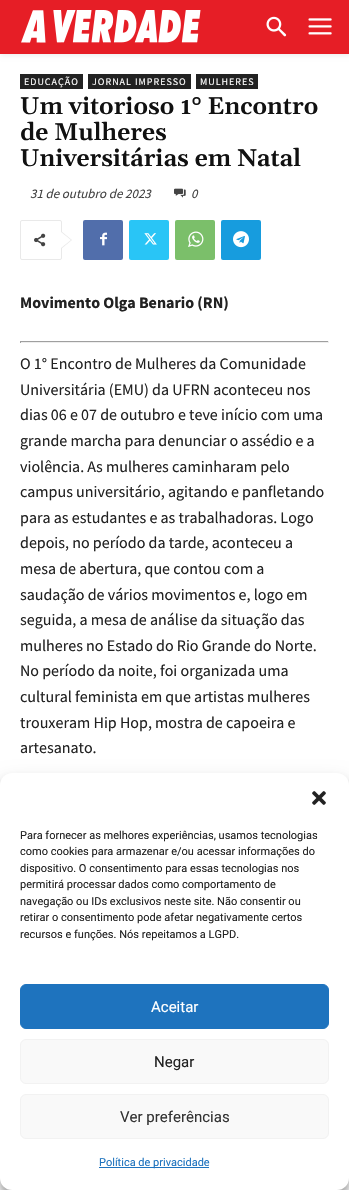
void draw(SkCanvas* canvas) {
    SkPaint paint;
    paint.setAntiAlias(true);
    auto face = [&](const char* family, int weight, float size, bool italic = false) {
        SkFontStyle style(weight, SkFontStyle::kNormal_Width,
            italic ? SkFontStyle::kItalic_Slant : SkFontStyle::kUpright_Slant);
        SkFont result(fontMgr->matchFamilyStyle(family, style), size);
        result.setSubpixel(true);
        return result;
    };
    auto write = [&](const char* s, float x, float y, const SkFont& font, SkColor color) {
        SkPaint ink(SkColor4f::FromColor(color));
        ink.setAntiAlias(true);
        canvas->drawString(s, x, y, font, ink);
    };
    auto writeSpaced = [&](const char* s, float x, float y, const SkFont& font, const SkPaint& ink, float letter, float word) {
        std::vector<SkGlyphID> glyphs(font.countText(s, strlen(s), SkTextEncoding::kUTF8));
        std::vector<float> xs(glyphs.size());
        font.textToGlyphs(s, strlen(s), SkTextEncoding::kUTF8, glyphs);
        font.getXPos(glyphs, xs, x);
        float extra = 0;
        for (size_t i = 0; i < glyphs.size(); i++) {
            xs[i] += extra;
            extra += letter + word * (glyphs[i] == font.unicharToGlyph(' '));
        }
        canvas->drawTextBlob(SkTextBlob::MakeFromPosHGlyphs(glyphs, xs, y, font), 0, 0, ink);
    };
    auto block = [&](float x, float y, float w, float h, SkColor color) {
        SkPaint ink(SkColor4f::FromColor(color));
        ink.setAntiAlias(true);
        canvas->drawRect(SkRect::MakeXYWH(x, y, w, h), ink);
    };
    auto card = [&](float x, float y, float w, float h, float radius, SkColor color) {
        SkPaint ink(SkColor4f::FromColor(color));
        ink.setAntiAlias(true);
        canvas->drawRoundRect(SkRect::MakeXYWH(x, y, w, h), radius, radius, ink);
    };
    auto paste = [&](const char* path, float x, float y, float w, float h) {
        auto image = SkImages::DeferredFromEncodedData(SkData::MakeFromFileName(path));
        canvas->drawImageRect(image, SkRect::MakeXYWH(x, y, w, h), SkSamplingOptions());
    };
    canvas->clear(SK_ColorWHITE);
    paint.setColor(SkColorSetARGB(15, 0, 0, 0));
    paint.setMaskFilter(SkMaskFilter::MakeBlur(kNormal_SkBlurStyle, 2));
    canvas->drawRect(SkRect::MakeXYWH(1, 2, 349, 54), paint);
    paint.setMaskFilter(nullptr);
    block(0, 0, 349, 54, SkColorSetRGB(230, 30, 38));
    paste("pic1.png", 21, 10, 180, 33);
    paste("pic2.png", 266, 16, 21, 21);
    paste("pic3.png", 308, 18, 24, 17);
    block(20, 74, 63, 15, SkColorSetRGB(34, 34, 34));
    auto kFont1 = face("Source Sans Pro", 400, 10);
    paint.setColor(SK_ColorWHITE);
    writeSpaced("EDUCAÇÃO", 24, 85, kFont1, paint, 1, 0);
    block(88, 74, 103, 15, SkColorSetRGB(34, 34, 34));
    writeSpaced("JORNAL IMPRESSO", 92, 85, kFont1, paint, 1, 0);
    block(196, 74, 62, 15, SkColorSetRGB(34, 34, 34));
    writeSpaced("MULHERES", 200, 85, kFont1, paint, 1, 0);
    auto kFont2 = face("Gelasio", 600, 24);
    write("Um vitorioso 1° Encontro", 20, 114, kFont2, SkColorSetRGB(17, 17, 17));
    write("de Mulheres", 20, 140, kFont2, SkColorSetRGB(17, 17, 17));
    write("Universitárias em Natal", 20, 166, kFont2, SkColorSetRGB(17, 17, 17));
    auto kFont3 = face("Source Sans Pro", 400, 13, true);
    write("31 de outubro de 2023", 30, 198, kFont3, SkColorSetRGB(68, 68, 68));
    paste("pic4.png", 174, 188, 12, 10);
    write("0", 191, 198, kFont3, SkColorSetRGB(68, 68, 68));
    paint.setStyle(SkPaint::kStroke_Style);
    paint.setStrokeWidth(1);
    paint.setColor(SkColorSetRGB(233, 233, 233));
    canvas->drawRoundRect(SkRect::MakeXYWH(20.5f, 220.5f, 41, 39), 1.5f, 1.5f, paint);
    paint.setStyle(SkPaint::kFill_Style);
    canvas->drawPath(SkPathBuilder().moveTo(61, 249).lineTo(61, 231).lineTo(72, 240).close().detach(), paint);
    paste("pic5.png", 34, 233, 12, 14);
    paint.setColor(SK_ColorWHITE);
    canvas->drawPath(SkPathBuilder().moveTo(61, 248).lineTo(61, 232).lineTo(71, 240).close().detach(), paint);
    card(83, 220, 40, 40, 2, SkColorSetRGB(81, 110, 171));
    paste("pic6.png", 100, 232, 7, 14);
    card(129, 220, 40, 40, 2, SkColorSetRGB(41, 197, 246));
    paste("pic7.png", 144, 233, 13, 12);
    card(175, 220, 40, 40, 2, SkColorSetRGB(123, 191, 106));
    paste("pic8.png", 188, 231, 16, 16);
    card(221, 220, 40, 40, 2, SkColorSetRGB(23, 156, 222));
    paste("pic9.png", 233, 231, 16, 17);
    auto kFont4 = face("Source Sans Pro", 700, 16);
    write("Movimento Olga Benario (RN)", 20, 308, kFont4, SkColorSetRGB(34, 34, 34));
    block(20, 341, 309, 1, SkColorSetRGB(159, 159, 159));
    block(328, 341, 1, 2, SkColorSetRGB(238, 238, 238));
    block(20, 342, 309, 1, SkColorSetRGB(238, 238, 238));
    block(20, 341, 1, 2, SkColorSetRGB(159, 159, 159));
    auto kFont5 = face("Source Sans Pro", 400, 16);
    write("O 1° Encontro de Mulheres da Comunidade", 20, 369, kFont5, SkColorSetRGB(34, 34, 34));
    write("Universitária (EMU) da UFRN aconteceu nos", 20, 395, kFont5, SkColorSetRGB(34, 34, 34));
    write("dias 06 e 07 de outubro e teve início com uma", 20, 420, kFont5, SkColorSetRGB(34, 34, 34));
    write("grande marcha para denunciar o assédio e a", 20, 446, kFont5, SkColorSetRGB(34, 34, 34));
    write("violência. As mulheres caminharam pelo", 20, 472, kFont5, SkColorSetRGB(34, 34, 34));
    write("campus universitário, agitando e panfletando", 20, 497, kFont5, SkColorSetRGB(34, 34, 34));
    write("para as estudantes e as trabalhadoras. Logo", 20, 523, kFont5, SkColorSetRGB(34, 34, 34));
    write("depois, no período da tarde, aconteceu a", 20, 548, kFont5, SkColorSetRGB(34, 34, 34));
    write("mesa de abertura, que contou com a", 20, 574, kFont5, SkColorSetRGB(34, 34, 34));
    write("saudação de vários movimentos e, logo em", 20, 600, kFont5, SkColorSetRGB(34, 34, 34));
    write("seguida, a mesa de análise da situação das", 20, 625, kFont5, SkColorSetRGB(34, 34, 34));
    write("mulheres no Estado do Rio Grande do Norte.", 20, 651, kFont5, SkColorSetRGB(34, 34, 34));
    write("No período da noite, foi organizada uma", 20, 676, kFont5, SkColorSetRGB(34, 34, 34));
    write("cultural feminista em que artistas mulheres", 20, 702, kFont5, SkColorSetRGB(34, 34, 34));
    write("trouxeram Hip Hop, mostra de capoeira e", 20, 728, kFont5, SkColorSetRGB(34, 34, 34));
    write("artesanato.", 20, 753, kFont5, SkColorSetRGB(34, 34, 34));
    paint.setColor(SkColorSetARGB(59, 0, 0, 0));
    paint.setMaskFilter(SkMaskFilter::MakeBlur(kNormal_SkBlurStyle, 3));
    canvas->drawRoundRect(SkRect::MakeXYWH(0, 779, 349, 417), 12, 12, paint);
    paint.setMaskFilter(nullptr);
    paint.setColor(SkColorSetARGB(48, 0, 0, 0));
    paint.setMaskFilter(SkMaskFilter::MakeBlur(kNormal_SkBlurStyle, 10));
    canvas->drawRoundRect(SkRect::MakeXYWH(0, 783, 349, 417), 12, 12, paint);
    paint.setMaskFilter(nullptr);
    card(0, 773, 349, 417, 12, SK_ColorWHITE);
    paste("pic10.png", 312, 791, 14, 14);
    auto kFont6 = face("Roboto", 400, 11);
    write("Para fornecer as melhores experiências, usamos tecnologias", 20, 839, kFont6, SkColorSetRGB(34, 34, 34));
    write("como cookies para armazenar e/ou acessar informações do", 20, 855, kFont6, SkColorSetRGB(34, 34, 34));
    write("dispositivo. O consentimento para essas tecnologias nos", 20, 872, kFont6, SkColorSetRGB(34, 34, 34));
    write("permitirá processar dados como comportamento de", 20, 888, kFont6, SkColorSetRGB(34, 34, 34));
    write("navegação ou IDs exclusivos neste site. Não consentir ou", 20, 905, kFont6, SkColorSetRGB(34, 34, 34));
    write("retirar o consentimento pode afetar negativamente certos", 20, 921, kFont6, SkColorSetRGB(34, 34, 34));
    write("recursos e funções. Nós repeitamos a LGPD.", 20, 938, kFont6, SkColorSetRGB(34, 34, 34));
    paint.setColor(SkColorSetRGB(30, 115, 190));
    canvas->drawRoundRect(SkRect::MakeXYWH(20.5f, 984.5f, 308, 44), 5.5f, 5.5f, paint);
    paint.setStyle(SkPaint::kStroke_Style);
    canvas->drawRoundRect(SkRect::MakeXYWH(20.5f, 984.5f, 308, 44), 5.5f, 5.5f, paint);
    auto kFont7 = face("Roboto", 400, 15);
    write("Aceitar", 151, 1012, kFont7, SK_ColorWHITE);
    paint.setStyle(SkPaint::kFill_Style);
    paint.setColor(SkColorSetRGB(249, 249, 249));
    canvas->drawRoundRect(SkRect::MakeXYWH(20.5f, 1039.5f, 308, 44), 5.5f, 5.5f, paint);
    paint.setStyle(SkPaint::kStroke_Style);
    paint.setColor(SkColorSetRGB(242, 242, 242));
    canvas->drawRoundRect(SkRect::MakeXYWH(20.5f, 1039.5f, 308, 44), 5.5f, 5.5f, paint);
    write("Negar", 154, 1067, kFont7, SkColorSetRGB(34, 34, 34));
    paint.setStyle(SkPaint::kFill_Style);
    paint.setColor(SkColorSetRGB(249, 249, 249));
    canvas->drawRoundRect(SkRect::MakeXYWH(20.5f, 1094.5f, 308, 44), 5.5f, 5.5f, paint);
    paint.setStyle(SkPaint::kStroke_Style);
    paint.setColor(SkColorSetRGB(242, 242, 242));
    canvas->drawRoundRect(SkRect::MakeXYWH(20.5f, 1094.5f, 308, 44), 5.5f, 5.5f, paint);
    write("Ver preferências", 120, 1122, kFont7, SkColorSetRGB(51, 51, 51));
    block(99, 1167, 110, 1, SkColorSetRGB(30, 115, 190));
    write("Política de privacidade", 99, 1166, kFont6, SkColorSetRGB(30, 115, 190));
}
